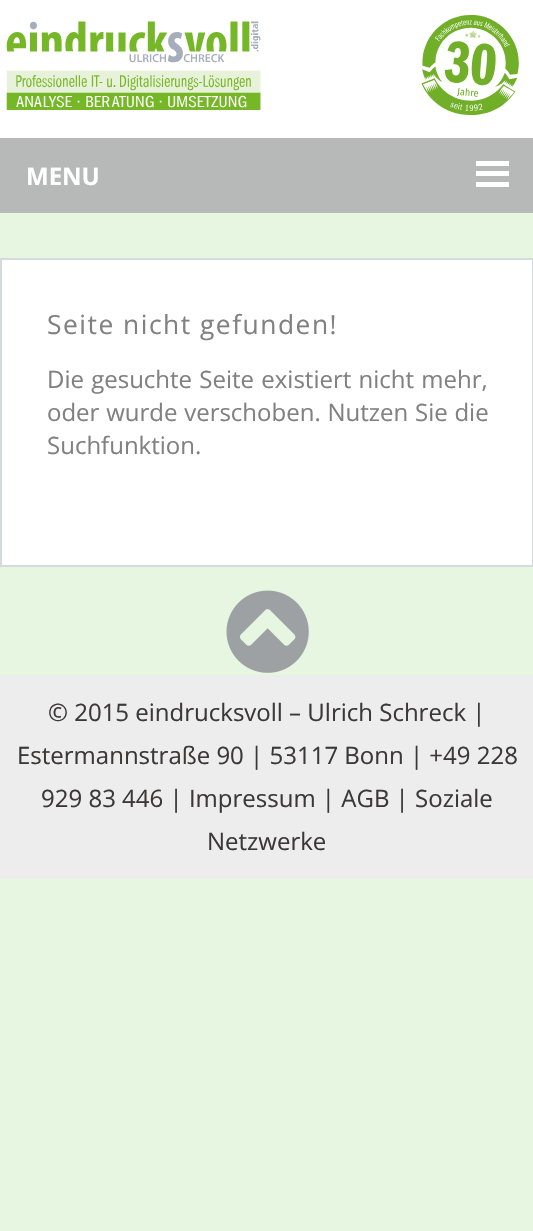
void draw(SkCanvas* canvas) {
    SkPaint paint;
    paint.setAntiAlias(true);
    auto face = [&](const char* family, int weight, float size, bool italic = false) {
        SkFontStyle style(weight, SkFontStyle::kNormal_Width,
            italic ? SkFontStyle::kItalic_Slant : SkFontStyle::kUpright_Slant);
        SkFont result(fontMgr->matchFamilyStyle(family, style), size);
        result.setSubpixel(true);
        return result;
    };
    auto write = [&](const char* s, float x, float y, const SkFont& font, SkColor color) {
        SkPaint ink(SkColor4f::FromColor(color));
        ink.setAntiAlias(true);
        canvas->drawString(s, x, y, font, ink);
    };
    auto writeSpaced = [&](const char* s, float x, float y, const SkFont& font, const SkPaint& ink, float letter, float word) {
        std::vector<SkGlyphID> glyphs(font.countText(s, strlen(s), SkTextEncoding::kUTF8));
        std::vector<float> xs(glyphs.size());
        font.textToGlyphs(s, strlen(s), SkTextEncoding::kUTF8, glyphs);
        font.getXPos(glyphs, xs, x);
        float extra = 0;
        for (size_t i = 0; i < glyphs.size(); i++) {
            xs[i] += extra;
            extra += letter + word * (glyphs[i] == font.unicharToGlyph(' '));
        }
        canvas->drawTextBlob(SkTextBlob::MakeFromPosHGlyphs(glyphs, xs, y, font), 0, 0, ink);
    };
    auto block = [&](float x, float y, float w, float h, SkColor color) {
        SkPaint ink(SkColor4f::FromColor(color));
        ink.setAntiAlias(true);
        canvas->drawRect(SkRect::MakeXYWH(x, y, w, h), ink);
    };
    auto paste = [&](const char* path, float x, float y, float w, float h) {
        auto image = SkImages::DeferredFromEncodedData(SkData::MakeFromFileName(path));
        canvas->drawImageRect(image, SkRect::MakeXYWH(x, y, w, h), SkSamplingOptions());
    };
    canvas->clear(SkColorSetRGB(231, 246, 225));
    block(0, 0, 533, 138, SK_ColorWHITE);
    paste("pic1.png", 6, 21, 255, 89);
    paste("pic2.png", 421, 15, 98, 100);
    block(0, 138, 533, 75, SkColorSetRGB(183, 184, 184));
    block(476, 161, 33, 5, SK_ColorWHITE);
    auto kFont1 = face("Open Sans", 700, 24);
    write("MENU", 26, 185, kFont1, SK_ColorWHITE);
    block(476, 171, 33, 5, SK_ColorWHITE);
    block(476, 182, 33, 5, SK_ColorWHITE);
    paint.setColor(SK_ColorWHITE);
    canvas->drawRect(SkRect::MakeXYWH(1, 259, 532, 307), paint);
    paint.setStyle(SkPaint::kStroke_Style);
    paint.setStrokeWidth(2);
    paint.setColor(SkColorSetRGB(213, 219, 220));
    canvas->drawRect(SkRect::MakeXYWH(1, 259, 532, 307), paint);
    auto kFont2 = face("Open Sans", 400, 26.4f);
    paint.setStyle(SkPaint::kFill_Style);
    paint.setColor(SkColorSetRGB(129, 129, 129));
    writeSpaced("Seite nicht gefunden!", 47, 334, kFont2, paint, 1.5f, 0);
    auto kFont3 = face("Open Sans", 400, 24);
    writeSpaced("Die gesuchte Seite existiert nicht mehr,", 47, 388, kFont3, paint, 0, 1);
    writeSpaced("oder wurde verschoben. Nutzen Sie die", 47, 421, kFont3, paint, 0, 0.5f);
    write("Suchfunktion.", 47, 454, kFont3, SkColorSetRGB(129, 129, 129));
    paste("pic3.png", 226, 590, 83, 83);
    block(0, 675, 533, 204, SkColorSetRGB(237, 237, 237));
    write("© 2015 eindrucksvoll – Ulrich Schreck |", 48, 721, kFont3, SkColorSetRGB(59, 56, 56));
    write("Estermannstraße 90 | 53117 Bonn | +49 228", 17, 764, kFont3, SkColorSetRGB(59, 56, 56));
    write("929 83 446 | Impressum | AGB | Soziale", 41, 807, kFont3, SkColorSetRGB(59, 56, 56));
    write("Netzwerke", 207, 850, kFont3, SkColorSetRGB(59, 56, 56));
}
